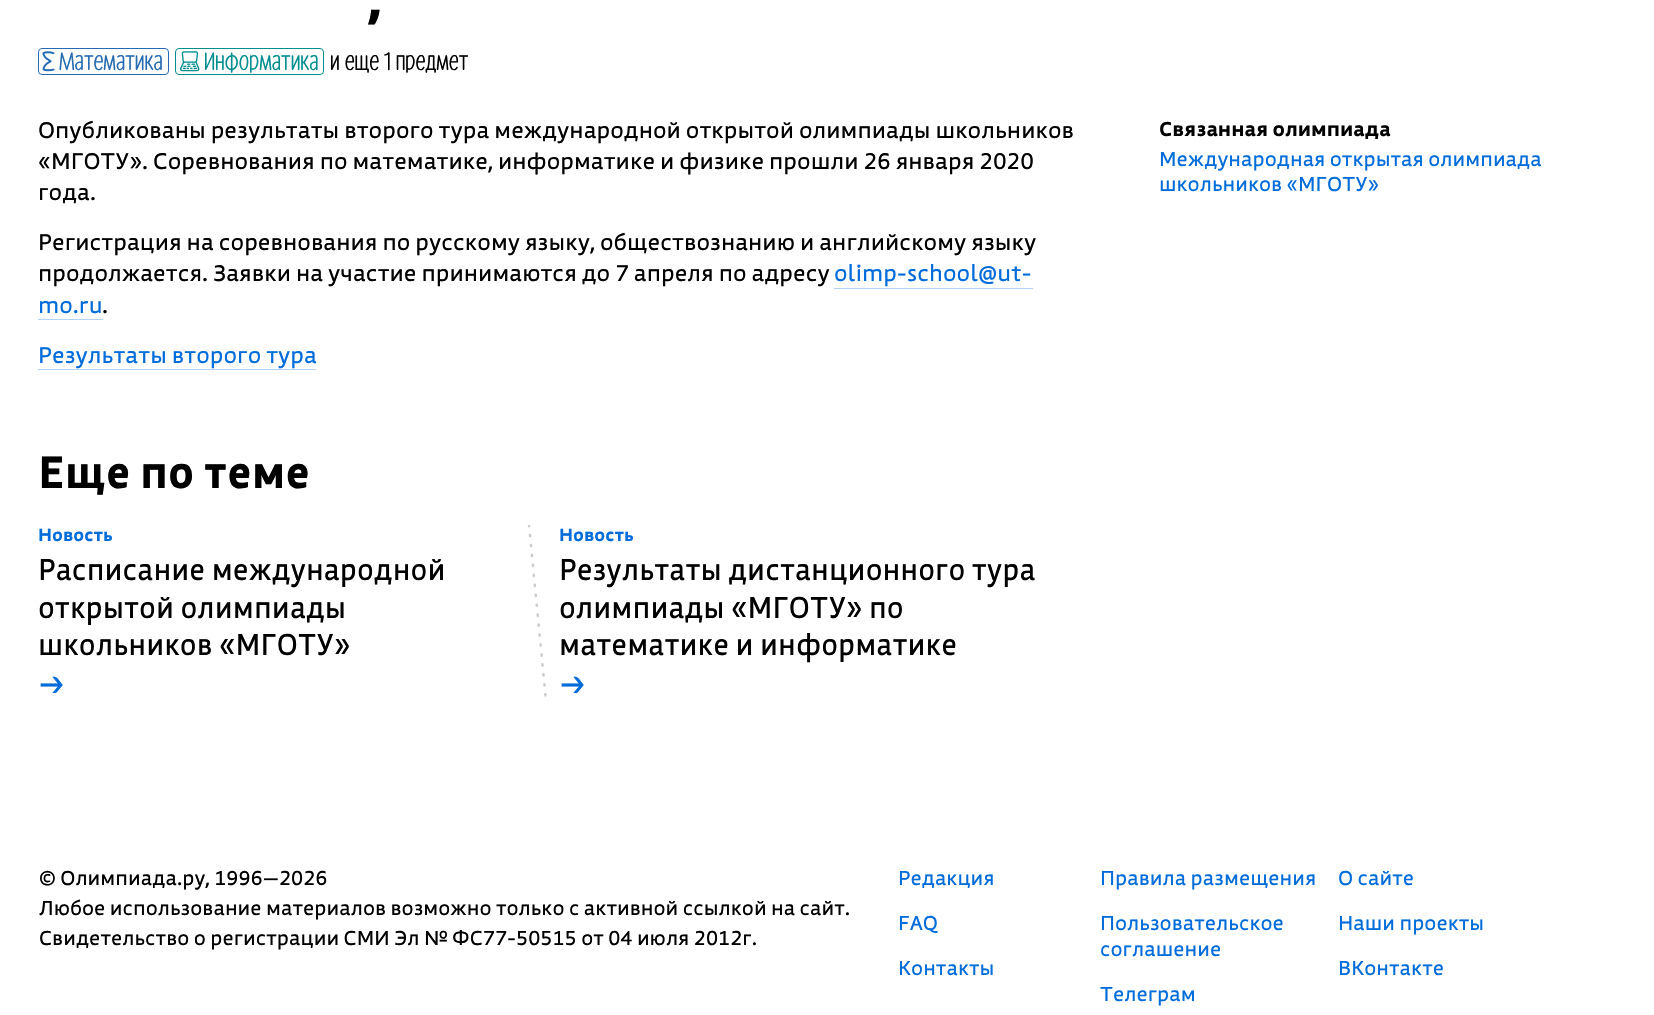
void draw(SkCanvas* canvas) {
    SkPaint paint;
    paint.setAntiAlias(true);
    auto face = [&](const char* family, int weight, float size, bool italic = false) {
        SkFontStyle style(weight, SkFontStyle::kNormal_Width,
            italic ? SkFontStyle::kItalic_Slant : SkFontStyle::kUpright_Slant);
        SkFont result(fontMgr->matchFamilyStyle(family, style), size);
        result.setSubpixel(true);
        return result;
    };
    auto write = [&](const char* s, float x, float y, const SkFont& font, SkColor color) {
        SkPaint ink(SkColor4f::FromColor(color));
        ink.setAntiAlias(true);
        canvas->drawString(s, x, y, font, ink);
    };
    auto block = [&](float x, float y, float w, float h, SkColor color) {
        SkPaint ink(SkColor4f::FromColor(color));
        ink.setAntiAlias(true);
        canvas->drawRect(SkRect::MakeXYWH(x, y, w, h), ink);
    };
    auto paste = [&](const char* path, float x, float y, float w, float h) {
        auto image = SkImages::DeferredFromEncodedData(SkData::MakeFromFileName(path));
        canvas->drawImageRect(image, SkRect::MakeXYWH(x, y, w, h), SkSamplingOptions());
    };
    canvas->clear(SK_ColorWHITE);
    auto kFont1 = face("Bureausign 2", 700, 56);
    write(",", 368, 16, kFont1, SK_ColorBLACK);
    paint.setStyle(SkPaint::kStroke_Style);
    paint.setStrokeWidth(1);
    paint.setColor(SkColorSetRGB(36, 107, 178));
    canvas->drawRoundRect(SkRect::MakeXYWH(38.5f, 48.5f, 130, 26), 3.5f, 3.5f, paint);
    paste("pic1.png", 42, 51, 13, 21);
    auto kFont2 = face("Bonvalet", 400, 25);
    write("Математика", 59, 70, kFont2, SkColorSetRGB(36, 107, 178));
    paint.setColor(SkColorSetRGB(0, 142, 143));
    canvas->drawRoundRect(SkRect::MakeXYWH(175.5f, 48.5f, 148, 26), 3.5f, 3.5f, paint);
    paste("pic2.png", 180, 51, 20, 21);
    write("Информатика", 204, 70, kFont2, SkColorSetRGB(0, 142, 143));
    write("и еще 1 предмет", 330, 70, kFont2, SK_ColorBLACK);
    auto kFont3 = face("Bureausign", 400, 22.5f);
    write("Опубликованы результаты второго тура международной открытой олимпиады школьников", 38, 138, kFont3, SK_ColorBLACK);
    write("«МГОТУ». Соревнования по математике, информатике и физике прошли 26 января 2020", 38, 169, kFont3, SK_ColorBLACK);
    write("года.", 38, 200, kFont3, SK_ColorBLACK);
    write("Регистрация на соревнования по русскому языку, обществознанию и английскому языку", 38, 250, kFont3, SK_ColorBLACK);
    write("продолжается. Заявки на участие принимаются до 7 апреля по адресу", 38, 281, kFont3, SK_ColorBLACK);
    write("olimp-school@ut-", 834, 281, kFont3, SkColorSetRGB(0, 108, 217));
    block(834, 288, 199, 1, SkColorSetRGB(179, 211, 244));
    write("mo.ru", 38, 313, kFont3, SkColorSetRGB(0, 108, 217));
    block(38, 319, 65, 1, SkColorSetRGB(179, 211, 244));
    write(".", 102, 313, kFont3, SK_ColorBLACK);
    write("Результаты второго тура", 38, 363, kFont3, SkColorSetRGB(0, 108, 217));
    block(38, 369, 278, 1, SkColorSetRGB(179, 211, 244));
    auto kFont4 = face("Bureausign", 700, 20);
    write("Связанная олимпиада", 1159, 136, kFont4, SK_ColorBLACK);
    auto kFont5 = face("Bureausign", 400, 20);
    write("Международная открытая олимпиада", 1159, 166, kFont5, SkColorSetRGB(0, 108, 217));
    write("школьников «МГОТУ»", 1159, 191, kFont5, SkColorSetRGB(0, 108, 217));
    auto kFont6 = face("Bureausign 2", 700, 45);
    write("Еще по теме", 38, 488, kFont6, SK_ColorBLACK);
    auto kFont7 = face("Bureausign", 700, 17.5f);
    write("Новость", 38, 541, kFont7, SkColorSetRGB(0, 108, 217));
    auto kFont8 = face("Bureausign 2", 400, 30);
    write("Расписание международной", 38, 580, kFont8, SK_ColorBLACK);
    write("открытой олимпиады", 38, 618, kFont8, SK_ColorBLACK);
    write("школьников «МГОТУ»", 38, 655, kFont8, SK_ColorBLACK);
    write("→", 38, 693, kFont8, SkColorSetRGB(0, 108, 217));
    canvas->save();
    canvas->clipRect(SkRect::MakeXYWH(525, 525, 25, 176));
    paint.setStrokeWidth(2.5f);
    paint.setStrokeCap(SkPaint::kRound_Cap);
    paint.setColor(SkColorSetRGB(204, 204, 204));
    paint.setPathEffect(SkDashPathEffect::Make({{1.25f, 8.75f}}, 0));
    canvas->drawPath(SkPathBuilder().moveTo(529, 525).lineTo(546, 701).detach(), paint);
    paint.setPathEffect(nullptr);
    canvas->restore();
    write("Новость", 559, 541, kFont7, SkColorSetRGB(0, 108, 217));
    write("Результаты дистанционного тура", 559, 580, kFont8, SK_ColorBLACK);
    write("олимпиады «МГОТУ» по", 559, 618, kFont8, SK_ColorBLACK);
    write("математике и информатике", 559, 655, kFont8, SK_ColorBLACK);
    write("→", 559, 693, kFont8, SkColorSetRGB(0, 108, 217));
    write("© Олимпиада.ру, 1996—2026", 39, 885, kFont5, SK_ColorBLACK);
    write("Любое использование материалов возможно только с активной ссылкой на сайт.", 39, 915, kFont5, SK_ColorBLACK);
    write("Свидетельство о регистрации СМИ Эл № ФС77-50515 от 04 июля 2012г.", 39, 945, kFont5, SK_ColorBLACK);
    write("Редакция", 898, 885, kFont5, SkColorSetRGB(0, 108, 217));
    write("FAQ", 898, 930, kFont5, SkColorSetRGB(0, 108, 217));
    write("Контакты", 898, 975, kFont5, SkColorSetRGB(0, 108, 217));
    write("Правила размещения", 1100, 885, kFont5, SkColorSetRGB(0, 108, 217));
    write("Пользовательское", 1100, 930, kFont5, SkColorSetRGB(0, 108, 217));
    write("соглашение", 1100, 956, kFont5, SkColorSetRGB(0, 108, 217));
    write("Телеграм", 1100, 1001, kFont5, SkColorSetRGB(0, 108, 217));
    write("О сайте", 1338, 885, kFont5, SkColorSetRGB(0, 108, 217));
    write("Наши проекты", 1338, 930, kFont5, SkColorSetRGB(0, 108, 217));
    write("ВКонтакте", 1338, 975, kFont5, SkColorSetRGB(0, 108, 217));
}
